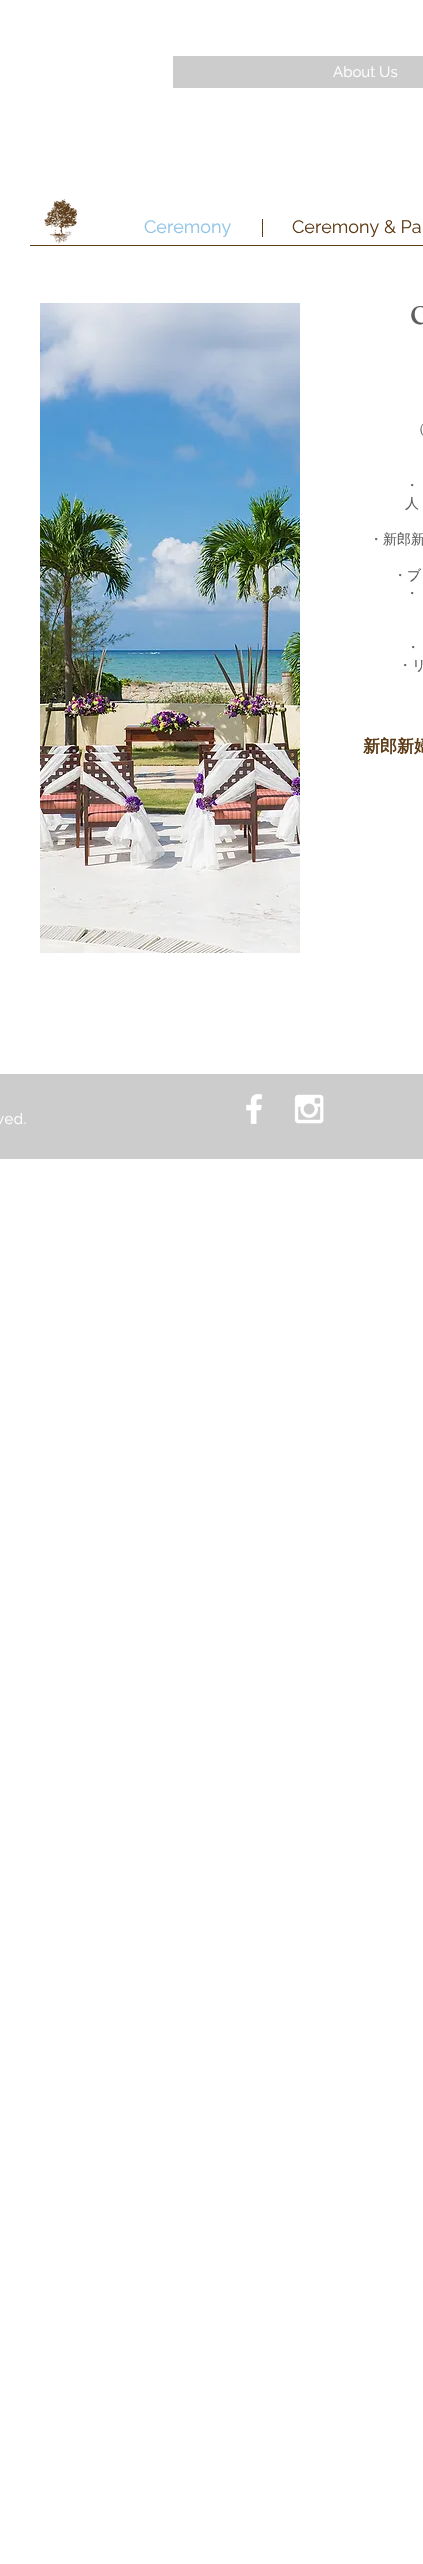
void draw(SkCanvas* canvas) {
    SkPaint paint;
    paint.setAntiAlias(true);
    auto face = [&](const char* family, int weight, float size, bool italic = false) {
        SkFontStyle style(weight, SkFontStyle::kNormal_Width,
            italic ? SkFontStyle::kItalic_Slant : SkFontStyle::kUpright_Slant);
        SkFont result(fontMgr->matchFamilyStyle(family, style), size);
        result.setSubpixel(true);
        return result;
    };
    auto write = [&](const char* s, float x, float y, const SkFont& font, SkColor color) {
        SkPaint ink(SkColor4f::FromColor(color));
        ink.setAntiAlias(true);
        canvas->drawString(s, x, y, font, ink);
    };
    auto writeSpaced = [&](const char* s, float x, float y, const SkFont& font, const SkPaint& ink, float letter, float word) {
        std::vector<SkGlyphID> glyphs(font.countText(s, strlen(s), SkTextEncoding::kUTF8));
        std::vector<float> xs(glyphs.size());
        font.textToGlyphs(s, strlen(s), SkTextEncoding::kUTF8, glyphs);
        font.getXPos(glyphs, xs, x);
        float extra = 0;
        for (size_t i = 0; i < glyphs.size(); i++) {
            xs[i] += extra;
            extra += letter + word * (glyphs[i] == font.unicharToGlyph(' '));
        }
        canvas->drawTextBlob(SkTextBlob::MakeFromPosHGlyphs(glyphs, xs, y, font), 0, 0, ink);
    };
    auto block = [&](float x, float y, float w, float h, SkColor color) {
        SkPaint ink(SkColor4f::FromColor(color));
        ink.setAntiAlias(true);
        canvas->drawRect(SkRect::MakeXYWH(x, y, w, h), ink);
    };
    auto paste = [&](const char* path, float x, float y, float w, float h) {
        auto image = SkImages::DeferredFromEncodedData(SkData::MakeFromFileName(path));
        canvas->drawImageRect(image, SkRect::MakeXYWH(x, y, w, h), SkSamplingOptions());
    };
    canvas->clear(SK_ColorWHITE);
    block(173, 56, 250, 32, SkColorSetRGB(204, 204, 204));
    auto kFont1 = face("Raleway", 400, 15);
    write("About Us", 333, 77, kFont1, SK_ColorWHITE);
    paste("pic1.png", 44, 199, 33, 45);
    auto kFont2 = face("Raleway", 400, 18);
    write("Ceremony", 144, 233, kFont2, SkColorSetRGB(142, 196, 231));
    block(262, 219, 1, 18, SkColorSetRGB(94, 60, 23));
    write("Ceremony & Pa", 292, 233, kFont2, SkColorSetRGB(94, 60, 23));
    block(30, 245, 393, 1, SkColorSetRGB(94, 60, 23));
    paste("pic2.png", 40, 303, 260, 650);
    auto kFont3 = face("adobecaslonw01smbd", 600, 25);
    write("C", 410, 324, kFont3, SkColorSetRGB(96, 94, 94));
    auto kFont4 = face("WenQuanYi Zen Hei", 500, 13);
    write("（", 412, 433, kFont4, SkColorSetRGB(96, 94, 94));
    auto kFont5 = face("WenQuanYi Zen Hei", 500, 14);
    write("・", 405, 490, kFont5, SkColorSetRGB(96, 94, 94));
    write("人", 405, 508, kFont5, SkColorSetRGB(96, 94, 94));
    write("・新郎新", 369, 544, kFont5, SkColorSetRGB(96, 94, 94));
    write("・ブ", 393, 580, kFont5, SkColorSetRGB(96, 94, 94));
    write("・", 405, 598, kFont5, SkColorSetRGB(96, 94, 94));
    write("・", 406, 652, kFont5, SkColorSetRGB(96, 94, 94));
    write("・リ", 398, 670, kFont5, SkColorSetRGB(96, 94, 94));
    auto kFont6 = face("WenQuanYi Zen Hei", 700, 17);
    write("新郎新婦", 363, 752, kFont6, SkColorSetRGB(94, 60, 23));
    block(0, 1074, 423, 85, SkColorSetRGB(204, 204, 204));
    paint.setColor(SK_ColorWHITE);
    writeSpaced("ved.", -4, 1124, kFont1, paint, 0.5f, 0);
    paste("pic3.png", 246, 1094, 16, 30);
    paste("pic4.png", 294, 1094, 30, 30);
}
